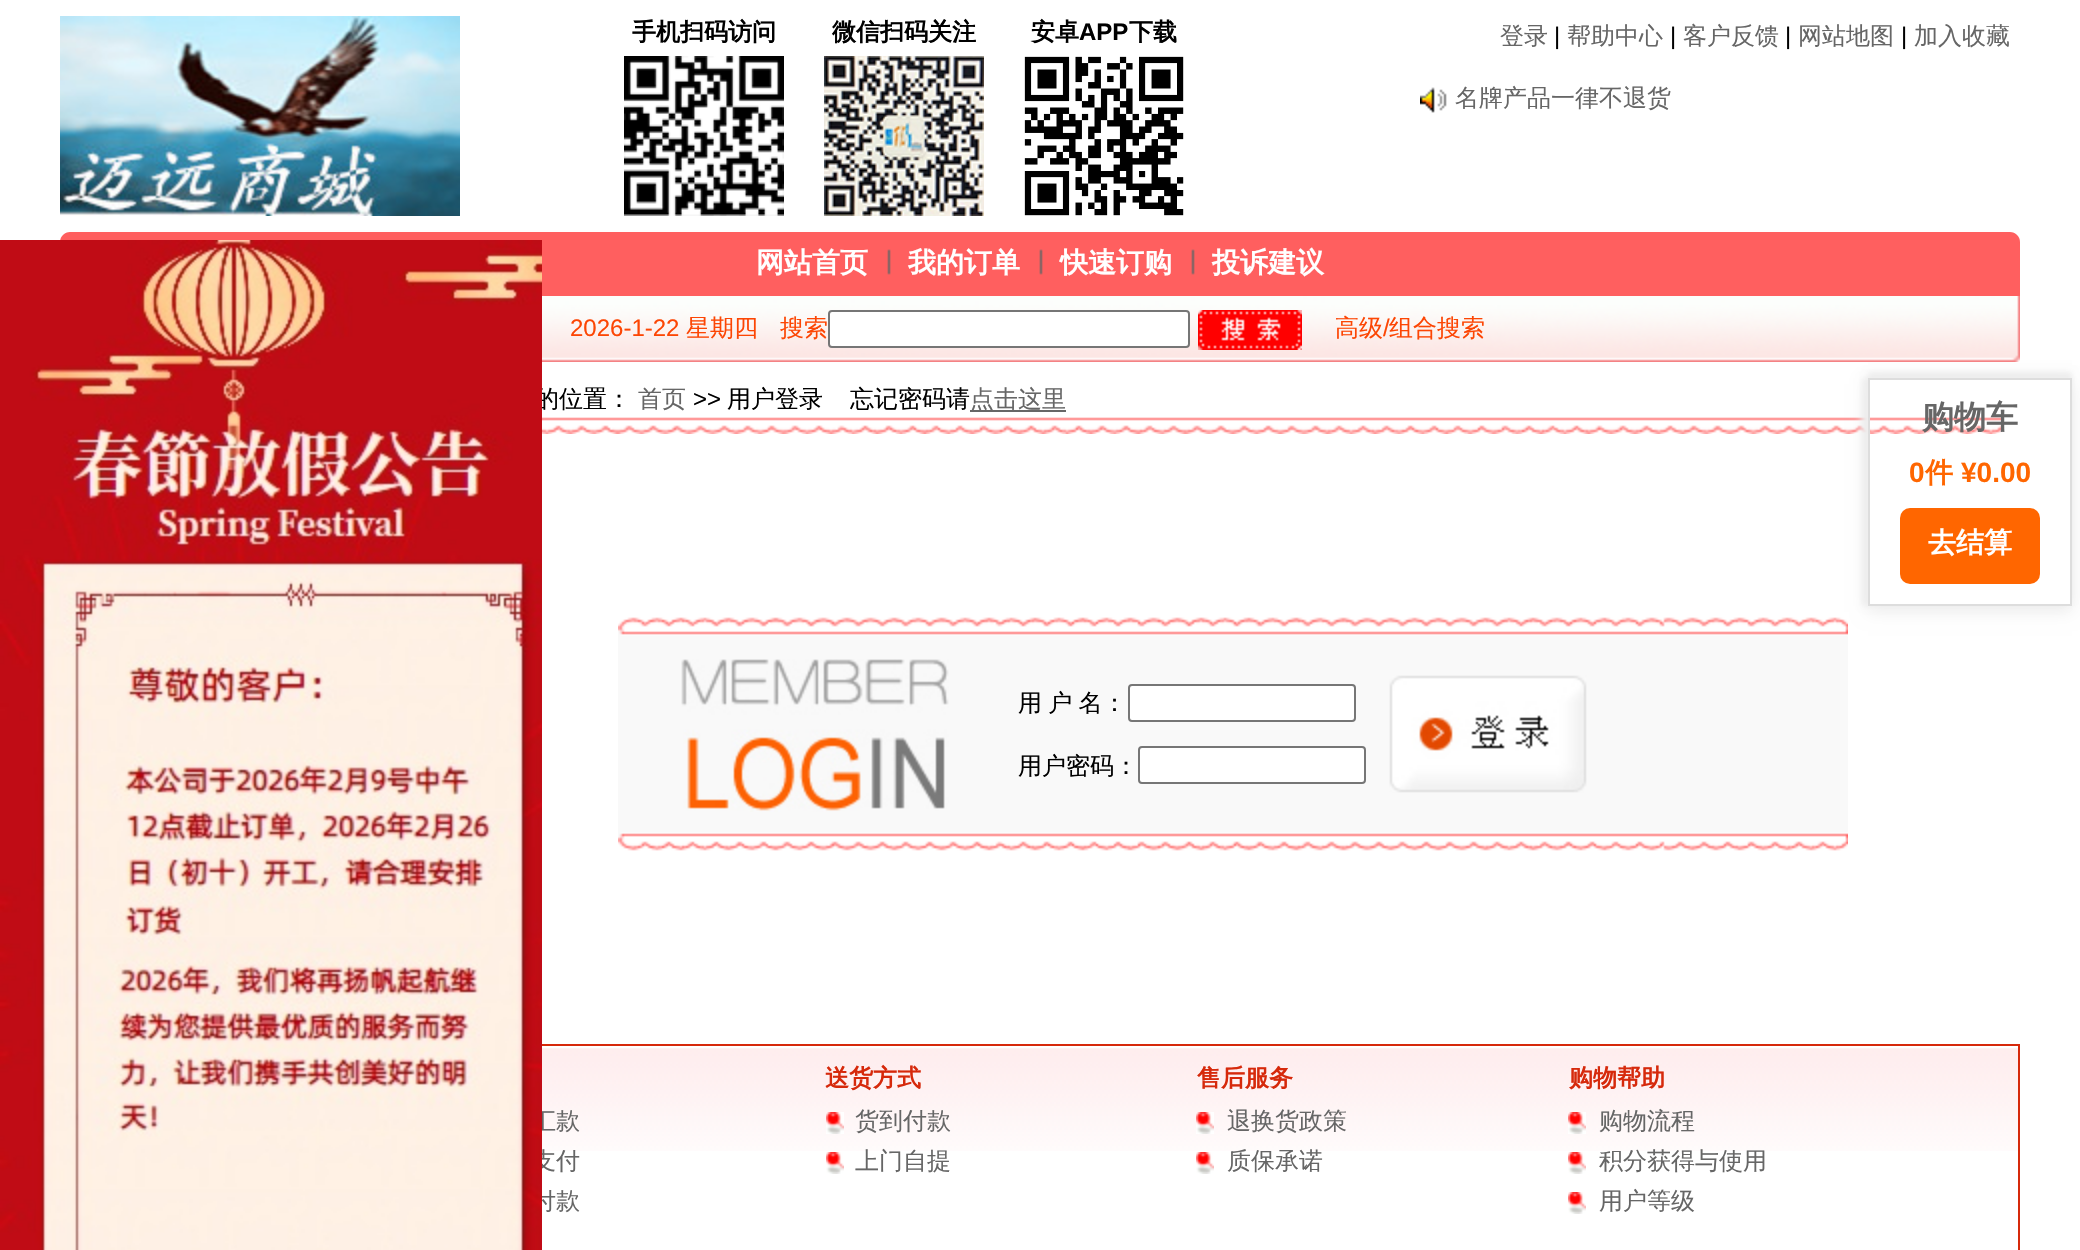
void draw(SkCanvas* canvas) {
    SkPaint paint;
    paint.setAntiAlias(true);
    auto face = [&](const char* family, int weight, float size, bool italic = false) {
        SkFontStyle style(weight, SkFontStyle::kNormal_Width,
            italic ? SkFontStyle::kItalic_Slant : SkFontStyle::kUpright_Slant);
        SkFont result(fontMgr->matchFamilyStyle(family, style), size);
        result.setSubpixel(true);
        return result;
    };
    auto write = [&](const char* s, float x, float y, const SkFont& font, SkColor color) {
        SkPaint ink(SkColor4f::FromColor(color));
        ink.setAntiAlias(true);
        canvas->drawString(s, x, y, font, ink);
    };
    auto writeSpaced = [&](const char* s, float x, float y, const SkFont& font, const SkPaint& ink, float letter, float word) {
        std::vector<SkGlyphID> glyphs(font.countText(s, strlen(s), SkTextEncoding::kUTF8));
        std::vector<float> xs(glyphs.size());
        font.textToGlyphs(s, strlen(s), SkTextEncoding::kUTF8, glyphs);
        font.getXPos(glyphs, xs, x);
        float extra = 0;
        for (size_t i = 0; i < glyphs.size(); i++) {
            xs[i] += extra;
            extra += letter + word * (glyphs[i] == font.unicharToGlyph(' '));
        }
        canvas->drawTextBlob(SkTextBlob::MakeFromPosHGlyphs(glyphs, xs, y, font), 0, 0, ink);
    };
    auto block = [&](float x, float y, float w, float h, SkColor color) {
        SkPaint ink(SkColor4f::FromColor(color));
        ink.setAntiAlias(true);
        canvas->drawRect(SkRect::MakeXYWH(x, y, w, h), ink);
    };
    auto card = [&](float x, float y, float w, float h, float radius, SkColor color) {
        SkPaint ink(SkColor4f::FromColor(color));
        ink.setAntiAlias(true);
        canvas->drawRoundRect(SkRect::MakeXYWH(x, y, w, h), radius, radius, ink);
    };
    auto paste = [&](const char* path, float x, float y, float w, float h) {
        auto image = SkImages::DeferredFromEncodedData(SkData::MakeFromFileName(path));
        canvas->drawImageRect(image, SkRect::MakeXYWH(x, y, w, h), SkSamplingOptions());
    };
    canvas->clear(SK_ColorWHITE);
    paste("pic1.png", 60, 16, 400, 200);
    auto kFont1 = face("WenQuanYi Zen Hei", 700, 24);
    write("手机扫码访问", 632, 40, kFont1, SK_ColorBLACK);
    paste("pic2.png", 624, 56, 160, 160);
    write("微信扫码关注", 832, 40, kFont1, SK_ColorBLACK);
    paste("pic3.png", 824, 56, 160, 160);
    write("安卓", 1031, 40, kFont1, SK_ColorBLACK);
    auto kFont2 = face("Liberation Sans", 700, 24);
    write("APP", 1079, 40, kFont2, SK_ColorBLACK);
    write("下载", 1129, 40, kFont1, SK_ColorBLACK);
    paste("pic4.png", 1024, 56, 160, 160);
    auto kFont3 = face("WenQuanYi Zen Hei", 500, 24);
    write("登录", 1500, 44, kFont3, SkColorSetRGB(102, 102, 102));
    auto kFont4 = face("Liberation Sans", 400, 24);
    write("|", 1554, 44, kFont4, SK_ColorBLACK);
    write("帮助中心", 1567, 44, kFont3, SkColorSetRGB(102, 102, 102));
    write("|", 1670, 44, kFont4, SK_ColorBLACK);
    write("客户反馈", 1683, 44, kFont3, SkColorSetRGB(102, 102, 102));
    write("|", 1785, 44, kFont4, SK_ColorBLACK);
    write("网站地图", 1798, 44, kFont3, SkColorSetRGB(102, 102, 102));
    write("|", 1901, 44, kFont4, SK_ColorBLACK);
    write("加入收藏", 1914, 44, kFont3, SkColorSetRGB(102, 102, 102));
    paste("pic5.png", 1420, 87, 27, 26);
    write("名牌产品一律不退货", 1455, 106, kFont3, SkColorSetRGB(102, 102, 102));
    paint.setColor(SkColorSetRGB(255, 95, 95));
    canvas->drawPath(SkPathBuilder().moveTo(70, 232).lineTo(2010, 232).cubicTo(2015.5f, 232, 2020, 236.5f, 2020, 242).lineTo(2020, 296).lineTo(60, 296).lineTo(60, 242).cubicTo(60, 236.5f, 64.5f, 232, 70, 232).close().detach(), paint);
    auto kFont5 = face("WenQuanYi Zen Hei", 700, 28);
    write("网站首页", 756, 272, kFont5, SK_ColorWHITE);
    paste("pic6.png", 887, 249, 4, 26);
    write("我的订单", 908, 272, kFont5, SK_ColorWHITE);
    paste("pic6.png", 1039, 249, 4, 26);
    write("快速订购", 1060, 272, kFont5, SK_ColorWHITE);
    paste("pic6.png", 1191, 249, 4, 26);
    write("投诉建议", 1212, 272, kFont5, SK_ColorWHITE);
    paste("pic7.png", 542, 296, 1478, 66);
    write("2026-1-22", 570, 336, kFont4, SkColorSetRGB(252, 70, 4));
    write("星期四", 686, 336, kFont3, SkColorSetRGB(252, 70, 4));
    write("搜索", 780, 336, kFont3, SkColorSetRGB(252, 70, 4));
    paint.setColor(SK_ColorWHITE);
    canvas->drawRoundRect(SkRect::MakeXYWH(829, 311, 360, 36), 3, 3, paint);
    paint.setStyle(SkPaint::kStroke_Style);
    paint.setStrokeWidth(2);
    paint.setColor(SkColorSetRGB(118, 118, 118));
    canvas->drawRoundRect(SkRect::MakeXYWH(829, 311, 360, 36), 3, 3, paint);
    paste("pic8.png", 1198, 310, 104, 40);
    write("高级", 1335, 336, kFont3, SkColorSetRGB(252, 70, 4));
    write("/", 1383, 336, kFont4, SkColorSetRGB(252, 70, 4));
    write("组合搜索", 1389, 336, kFont3, SkColorSetRGB(252, 70, 4));
    write("的位置：", 535, 407, kFont3, SK_ColorBLACK);
    paste("pic15.png", 542, 1048, 1476, 103);
    paint.setColor(SkColorSetRGB(214, 41, 11));
    canvas->drawRect(SkRect::MakeXYWH(61, 1045, 1958, 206), paint);
    write("汇款", 532, 1129, kFont3, SkColorSetRGB(102, 102, 102));
    write("支付", 532, 1169, kFont3, SkColorSetRGB(102, 102, 102));
    write("付款", 532, 1209, kFont3, SkColorSetRGB(102, 102, 102));
    paste("pic9.png", 0, 240, 542, 1010);
    paste("pic10.png", 542, 417, 1462, 17);
    write("首页", 638, 407, kFont3, SkColorSetRGB(102, 102, 102));
    write(">>", 693, 407, kFont4, SK_ColorBLACK);
    write("用户登录", 727, 407, kFont3, SK_ColorBLACK);
    write("忘记密码请", 850, 407, kFont3, SK_ColorBLACK);
    block(970, 410, 96, 2, SkColorSetRGB(102, 102, 102));
    write("点击这里", 970, 407, kFont3, SkColorSetRGB(102, 102, 102));
    paste("pic11.png", 618, 617, 1230, 37);
    block(618, 654, 1230, 160, SkColorSetRGB(249, 249, 249));
    paste("pic12.png", 681, 659, 268, 153);
    paint.setStyle(SkPaint::kFill_Style);
    paint.setColor(SK_ColorBLACK);
    writeSpaced("用 户 名：", 1018, 711, kFont3, paint, 0, -1);
    paint.setColor(SK_ColorWHITE);
    canvas->drawRoundRect(SkRect::MakeXYWH(1129, 685, 226, 36), 3, 3, paint);
    paint.setStyle(SkPaint::kStroke_Style);
    paint.setColor(SkColorSetRGB(118, 118, 118));
    canvas->drawRoundRect(SkRect::MakeXYWH(1129, 685, 226, 36), 3, 3, paint);
    paste("pic13.png", 1389, 675, 198, 118);
    write("用户密码：", 1018, 774, kFont3, SK_ColorBLACK);
    paint.setStyle(SkPaint::kFill_Style);
    paint.setColor(SK_ColorWHITE);
    canvas->drawRoundRect(SkRect::MakeXYWH(1139, 747, 226, 36), 3, 3, paint);
    paint.setStyle(SkPaint::kStroke_Style);
    paint.setColor(SkColorSetRGB(118, 118, 118));
    canvas->drawRoundRect(SkRect::MakeXYWH(1139, 747, 226, 36), 3, 3, paint);
    paste("pic14.png", 618, 814, 1230, 37);
    canvas->save();
    canvas->clipPath(SkPathBuilder(SkPathFillType::kEvenOdd).moveTo(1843, 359).lineTo(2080, 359).lineTo(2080, 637).lineTo(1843, 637).close().moveTo(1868, 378).lineTo(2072, 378).lineTo(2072, 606).lineTo(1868, 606).close().detach(), true);
    paint.setStyle(SkPaint::kFill_Style);
    paint.setColor(SkColorSetRGB(238, 238, 238));
    paint.setMaskFilter(SkMaskFilter::MakeBlur(kNormal_SkBlurStyle, 8));
    canvas->drawRect(SkRect::MakeXYWH(1868, 384, 204, 228), paint);
    paint.setMaskFilter(nullptr);
    canvas->restore();
    canvas->save();
    canvas->clipPath(SkPathBuilder(SkPathFillType::kEvenOdd).moveTo(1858, 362).lineTo(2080, 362).lineTo(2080, 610).lineTo(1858, 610).close().moveTo(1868, 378).lineTo(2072, 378).lineTo(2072, 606).lineTo(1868, 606).close().detach(), true);
    paint.setMaskFilter(SkMaskFilter::MakeBlur(kNormal_SkBlurStyle, 3));
    canvas->drawRect(SkRect::MakeXYWH(1868, 372, 204, 228), paint);
    paint.setMaskFilter(nullptr);
    canvas->restore();
    canvas->save();
    canvas->clipPath(SkPathBuilder(SkPathFillType::kEvenOdd).moveTo(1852, 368).lineTo(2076, 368).lineTo(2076, 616).lineTo(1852, 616).close().moveTo(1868, 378).lineTo(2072, 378).lineTo(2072, 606).lineTo(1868, 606).close().detach(), true);
    paint.setMaskFilter(SkMaskFilter::MakeBlur(kNormal_SkBlurStyle, 3));
    canvas->drawRect(SkRect::MakeXYWH(1862, 378, 204, 228), paint);
    paint.setMaskFilter(nullptr);
    canvas->restore();
    paint.setStyle(SkPaint::kStroke_Style);
    paint.setColor(SkColorSetRGB(221, 221, 221));
    canvas->drawRect(SkRect::MakeXYWH(1869, 379, 202, 226), paint);
    auto kFont6 = face("WenQuanYi Zen Hei", 700, 32);
    write("购物车", 1922, 428, kFont6, SkColorSetRGB(102, 102, 102));
    auto kFont7 = face("Liberation Sans", 700, 28);
    write("0", 1909, 482, kFont7, SkColorSetRGB(255, 102, 0));
    write("件", 1925, 482, kFont5, SkColorSetRGB(255, 102, 0));
    write("¥0.00", 1961, 482, kFont7, SkColorSetRGB(255, 102, 0));
    card(1900, 508, 140, 76, 10, SkColorSetRGB(255, 102, 0));
    write("去结算", 1928, 552, kFont5, SK_ColorWHITE);
    write("送货方式", 825, 1086, kFont1, SkColorSetRGB(214, 41, 11));
    paste("pic16.png", 826, 1112, 18, 22);
    write("货到付款", 855, 1129, kFont3, SkColorSetRGB(102, 102, 102));
    paste("pic16.png", 826, 1152, 18, 22);
    write("上门自提", 855, 1169, kFont3, SkColorSetRGB(102, 102, 102));
    write("售后服务", 1197, 1086, kFont1, SkColorSetRGB(214, 41, 11));
    paste("pic16.png", 1196, 1112, 18, 22);
    write("退换货政策", 1227, 1129, kFont3, SkColorSetRGB(102, 102, 102));
    paste("pic16.png", 1196, 1152, 18, 22);
    write("质保承诺", 1227, 1169, kFont3, SkColorSetRGB(102, 102, 102));
    write("购物帮助", 1569, 1086, kFont1, SkColorSetRGB(214, 41, 11));
    paste("pic16.png", 1568, 1112, 18, 22);
    write("购物流程", 1599, 1129, kFont3, SkColorSetRGB(102, 102, 102));
    paste("pic16.png", 1568, 1152, 18, 22);
    write("积分获得与使用", 1599, 1169, kFont3, SkColorSetRGB(102, 102, 102));
    paste("pic16.png", 1568, 1192, 18, 22);
    write("用户等级", 1599, 1209, kFont3, SkColorSetRGB(102, 102, 102));
}
